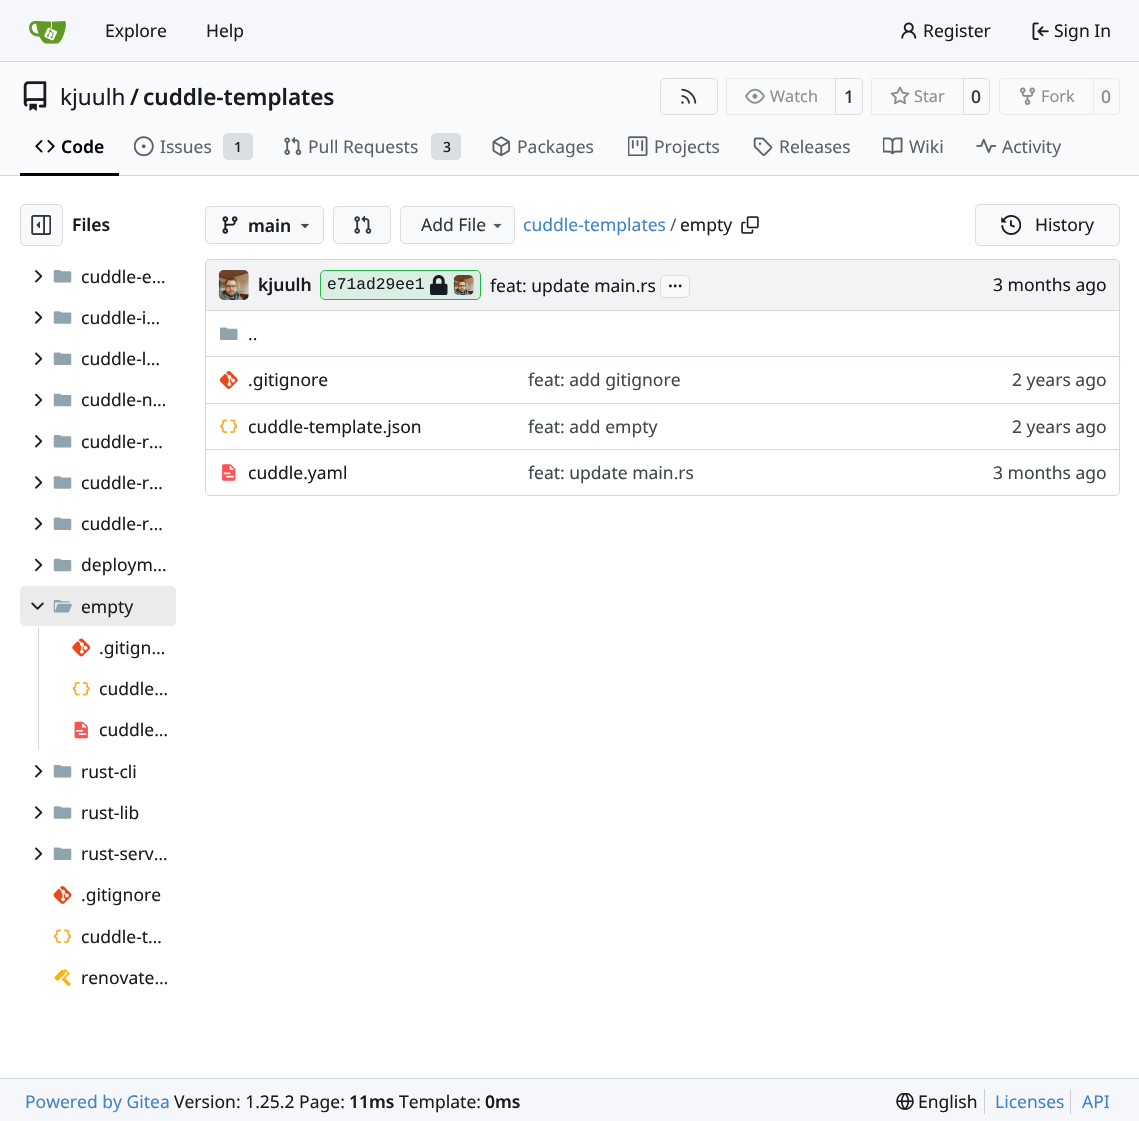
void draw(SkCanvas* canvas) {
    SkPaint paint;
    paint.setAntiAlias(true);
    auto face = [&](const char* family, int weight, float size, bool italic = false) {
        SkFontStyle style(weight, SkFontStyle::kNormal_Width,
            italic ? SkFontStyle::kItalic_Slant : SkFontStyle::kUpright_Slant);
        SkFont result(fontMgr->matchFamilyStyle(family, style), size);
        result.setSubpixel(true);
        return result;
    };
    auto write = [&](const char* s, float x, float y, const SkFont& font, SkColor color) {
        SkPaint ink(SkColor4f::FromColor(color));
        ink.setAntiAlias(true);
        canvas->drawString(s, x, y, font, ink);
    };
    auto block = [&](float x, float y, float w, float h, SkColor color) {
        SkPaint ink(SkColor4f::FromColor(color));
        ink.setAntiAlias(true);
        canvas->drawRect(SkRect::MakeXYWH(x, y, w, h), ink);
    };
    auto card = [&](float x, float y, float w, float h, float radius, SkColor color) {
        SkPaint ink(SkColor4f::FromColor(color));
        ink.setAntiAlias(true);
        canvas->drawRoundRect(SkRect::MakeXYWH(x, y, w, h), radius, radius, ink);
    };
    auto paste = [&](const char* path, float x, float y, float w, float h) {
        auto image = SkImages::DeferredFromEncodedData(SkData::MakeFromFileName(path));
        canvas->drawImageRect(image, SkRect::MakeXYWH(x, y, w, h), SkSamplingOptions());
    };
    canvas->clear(SK_ColorWHITE);
    block(0, 0, 1139, 61, SkColorSetRGB(246, 247, 250));
    block(0, 61, 1139, 1, SkColorSetRGB(208, 215, 222));
    paste("pic1.png", 29, 20, 37, 24);
    auto kFont1 = face("Noto Sans", 400, 17.5f);
    write("Explore", 105, 37, kFont1, SkColorSetRGB(24, 28, 33));
    write("Help", 206, 37, kFont1, SkColorSetRGB(24, 28, 33));
    paste("pic2.png", 901, 22, 16, 17);
    write("Register", 923, 37, kFont1, SkColorSetRGB(24, 28, 33));
    paste("pic3.png", 1032, 22, 17, 18);
    write("Sign In", 1054, 37, kFont1, SkColorSetRGB(24, 28, 33));
    block(0, 63, 1139, 112, SkColorSetRGB(249, 250, 251));
    paste("pic4.png", 23, 81, 24, 30);
    auto kFont2 = face("Noto Sans", 400, 22.5f);
    write("kjuulh", 60, 105, kFont2, SkColorSetRGB(24, 28, 33));
    auto kFont3 = face("Noto Sans", 600, 22.5f);
    write("/", 130, 105, kFont3, SkColorSetRGB(24, 28, 33));
    write("cuddle-templates", 143, 105, kFont3, SkColorSetRGB(24, 28, 33));
    paint.setStyle(SkPaint::kStroke_Style);
    paint.setStrokeWidth(1);
    paint.setColor(SkColorSetRGB(221, 222, 225));
    canvas->drawRoundRect(SkRect::MakeXYWH(660.5f, 78.5f, 57, 36), 4.5f, 4.5f, paint);
    paste("pic5.png", 681, 88, 16, 16);
    canvas->drawPath(SkPathBuilder().moveTo(835.5f, 78.5f).lineTo(858, 78.5f).cubicTo(860.5f, 78.5f, 862.5f, 80.5f, 862.5f, 83).lineTo(862.5f, 110).cubicTo(862.5f, 112.5f, 860.5f, 114.5f, 858, 114.5f).lineTo(835.5f, 114.5f).close().detach(), paint);
    paint.setStyle(SkPaint::kFill_Style);
    paint.setColor(SkColorSetARGB(140, 248, 249, 251));
    canvas->drawPath(SkPathBuilder().moveTo(731, 78).lineTo(836, 78).lineTo(836, 115).lineTo(731, 115).cubicTo(728, 115, 726, 113, 726, 110).lineTo(726, 83).cubicTo(726, 80, 728, 78, 731, 78).close().detach(), paint);
    paint.setStyle(SkPaint::kStroke_Style);
    paint.setColor(SkColorSetARGB(15, 0, 0, 23));
    canvas->drawRect(SkRect::MakeXYWH(726.5f, 78.5f, 109, 36), paint);
    paste("pic6.png", 745, 88, 20, 16);
    auto kFont4 = face("Noto Sans", 400, 16.25f);
    write("Watch", 770, 102, kFont4, SkColorSetRGB(138, 142, 145));
    auto kFont5 = face("Noto Sans", 500, 17.5f);
    write("1", 844, 103, kFont5, SkColorSetRGB(48, 54, 59));
    paint.setColor(SkColorSetRGB(221, 222, 225));
    canvas->drawPath(SkPathBuilder().moveTo(963.5f, 78.5f).lineTo(985, 78.5f).cubicTo(987.5f, 78.5f, 989.5f, 80.5f, 989.5f, 83).lineTo(989.5f, 110).cubicTo(989.5f, 112.5f, 987.5f, 114.5f, 985, 114.5f).lineTo(963.5f, 114.5f).close().detach(), paint);
    paint.setStyle(SkPaint::kFill_Style);
    paint.setColor(SkColorSetARGB(140, 248, 249, 251));
    canvas->drawPath(SkPathBuilder().moveTo(876, 78).lineTo(964, 78).lineTo(964, 115).lineTo(876, 115).cubicTo(873, 115, 871, 113, 871, 110).lineTo(871, 83).cubicTo(871, 80, 873, 78, 876, 78).close().detach(), paint);
    paint.setStyle(SkPaint::kStroke_Style);
    paint.setColor(SkColorSetARGB(15, 0, 0, 23));
    canvas->drawRect(SkRect::MakeXYWH(871.5f, 78.5f, 92, 36), paint);
    paste("pic7.png", 890, 86, 20, 19);
    write("Star", 914, 102, kFont4, SkColorSetRGB(138, 142, 145));
    write("0", 971, 103, kFont5, SkColorSetRGB(48, 54, 59));
    paint.setColor(SkColorSetRGB(233, 234, 237));
    canvas->drawPath(SkPathBuilder().moveTo(1004, 78.5f).lineTo(1093.5f, 78.5f).lineTo(1093.5f, 114.5f).lineTo(1004, 114.5f).cubicTo(1001.5f, 114.5f, 999.5f, 112.5f, 999.5f, 110).lineTo(999.5f, 83).cubicTo(999.5f, 80.5f, 1001.5f, 78.5f, 1004, 78.5f).close().detach(), paint);
    paste("pic8.png", 1020, 87, 15, 18);
    write("Fork", 1041, 102, kFont4, SkColorSetRGB(138, 142, 145));
    paint.setStyle(SkPaint::kFill_Style);
    paint.setColor(SkColorSetRGB(248, 249, 251));
    canvas->drawPath(SkPathBuilder().moveTo(1093.5f, 78.5f).lineTo(1115, 78.5f).cubicTo(1117.5f, 78.5f, 1119.5f, 80.5f, 1119.5f, 83).lineTo(1119.5f, 110).cubicTo(1119.5f, 112.5f, 1117.5f, 114.5f, 1115, 114.5f).lineTo(1093.5f, 114.5f).close().detach(), paint);
    paint.setStyle(SkPaint::kStroke_Style);
    paint.setColor(SkColorSetRGB(233, 234, 237));
    canvas->drawPath(SkPathBuilder().moveTo(1093.5f, 78.5f).lineTo(1115, 78.5f).cubicTo(1117.5f, 78.5f, 1119.5f, 80.5f, 1119.5f, 83).lineTo(1119.5f, 110).cubicTo(1119.5f, 112.5f, 1117.5f, 114.5f, 1115, 114.5f).lineTo(1093.5f, 114.5f).close().detach(), paint);
    write("0", 1101, 103, kFont5, SkColorSetRGB(138, 142, 145));
    block(0, 175, 1139, 1, SkColorSetRGB(208, 215, 222));
    block(20, 173, 99, 3, SkColorSetRGB(1, 5, 10));
    paste("pic9.png", 35, 140, 20, 13);
    auto kFont6 = face("Noto Sans", 600, 17.5f);
    write("Code", 61, 153, kFont6, SkColorSetRGB(1, 5, 10));
    paste("pic10.png", 134, 136, 20, 20);
    write("Issues", 160, 153, kFont1, SkColorSetRGB(91, 97, 103));
    card(223, 133, 30, 27, 5, SkColorSetRGB(219, 223, 226));
    auto kFont7 = face("Noto Sans", 500, 14);
    write("1", 234, 152, kFont7, SkColorSetRGB(24, 28, 33));
    paste("pic11.png", 284, 137, 18, 18);
    write("Pull Requests", 308, 153, kFont1, SkColorSetRGB(91, 97, 103));
    card(431, 133, 30, 27, 5, SkColorSetRGB(219, 223, 226));
    write("3", 443, 152, kFont7, SkColorSetRGB(24, 28, 33));
    paste("pic12.png", 492, 136, 18, 20);
    write("Packages", 517, 153, kFont1, SkColorSetRGB(91, 97, 103));
    paste("pic13.png", 628, 136, 20, 20);
    write("Projects", 654, 153, kFont1, SkColorSetRGB(91, 97, 103));
    paste("pic14.png", 753, 137, 20, 19);
    write("Releases", 779, 153, kFont1, SkColorSetRGB(91, 97, 103));
    paste("pic15.png", 883, 137, 20, 18);
    write("Wiki", 909, 153, kFont1, SkColorSetRGB(91, 97, 103));
    paste("pic16.png", 976, 138, 20, 16);
    write("Activity", 1002, 153, kFont1, SkColorSetRGB(91, 97, 103));
    card(20, 204, 43, 42, 5, SkColorSetRGB(248, 249, 251));
    paint.setColor(SkColorSetARGB(28, 0, 0, 23));
    canvas->drawRoundRect(SkRect::MakeXYWH(20.5f, 204.5f, 42, 41), 4.5f, 4.5f, paint);
    paste("pic17.png", 31, 215, 20, 20);
    write("Files", 72, 231, kFont6, SkColorSetRGB(24, 28, 33));
    paste("pic18.png", 35, 270, 8, 13);
    paste("pic19.png", 53, 270, 19, 13);
    write("cuddle-e…", 81, 283, kFont1, SkColorSetRGB(24, 28, 33));
    paste("pic20.png", 35, 311, 8, 13);
    paste("pic21.png", 53, 311, 19, 13);
    write("cuddle-i…", 81, 324, kFont1, SkColorSetRGB(24, 28, 33));
    paste("pic22.png", 35, 352, 8, 13);
    paste("pic23.png", 53, 352, 19, 13);
    write("cuddle-l…", 81, 365, kFont1, SkColorSetRGB(24, 28, 33));
    paste("pic24.png", 35, 393, 8, 14);
    paste("pic25.png", 53, 393, 19, 14);
    write("cuddle-n…", 81, 406, kFont1, SkColorSetRGB(24, 28, 33));
    paste("pic18.png", 35, 435, 8, 13);
    paste("pic19.png", 53, 435, 19, 13);
    write("cuddle-r…", 81, 448, kFont1, SkColorSetRGB(24, 28, 33));
    paste("pic20.png", 35, 476, 8, 13);
    paste("pic21.png", 53, 476, 19, 13);
    write("cuddle-r…", 81, 489, kFont1, SkColorSetRGB(24, 28, 33));
    paste("pic22.png", 35, 517, 8, 13);
    paste("pic23.png", 53, 517, 19, 13);
    write("cuddle-r…", 81, 530, kFont1, SkColorSetRGB(24, 28, 33));
    paste("pic24.png", 35, 558, 8, 14);
    paste("pic25.png", 53, 558, 19, 14);
    write("deploym…", 81, 571, kFont1, SkColorSetRGB(24, 28, 33));
    card(20, 586, 156, 40, 5, SkColorSetRGB(235, 235, 236));
    paste("pic26.png", 31, 602, 13, 8);
    paste("pic27.png", 53, 600, 19, 13);
    write("empty", 81, 613, kFont1, SkColorSetRGB(24, 28, 33));
    block(38, 628, 1, 122, SkColorSetRGB(208, 215, 222));
    paste("pic28.png", 72, 638, 19, 19);
    write(".gitign…", 99, 654, kFont1, SkColorSetRGB(24, 28, 33));
    paste("pic29.png", 72, 682, 18, 14);
    write("cuddle…", 99, 695, kFont1, SkColorSetRGB(24, 28, 33));
    paste("pic30.png", 74, 721, 14, 18);
    write("cuddle…", 99, 736, kFont1, SkColorSetRGB(24, 28, 33));
    paste("pic18.png", 35, 765, 8, 13);
    paste("pic19.png", 53, 765, 19, 13);
    write("rust-cli", 81, 778, kFont1, SkColorSetRGB(24, 28, 33));
    paste("pic20.png", 35, 806, 8, 13);
    paste("pic21.png", 53, 806, 19, 13);
    write("rust-lib", 81, 819, kFont1, SkColorSetRGB(24, 28, 33));
    paste("pic22.png", 35, 847, 8, 13);
    paste("pic23.png", 53, 847, 19, 13);
    write("rust-serv…", 81, 860, kFont1, SkColorSetRGB(24, 28, 33));
    paste("pic31.png", 53, 886, 19, 18);
    write(".gitignore", 81, 901, kFont1, SkColorSetRGB(24, 28, 33));
    paste("pic32.png", 54, 929, 17, 14);
    write("cuddle-t…", 81, 943, kFont1, SkColorSetRGB(24, 28, 33));
    paste("pic33.png", 54, 968, 17, 19);
    write("renovate…", 81, 984, kFont1, SkColorSetRGB(24, 28, 33));
    card(205, 206, 119, 38, 5, SkColorSetRGB(248, 249, 251));
    canvas->drawRoundRect(SkRect::MakeXYWH(205.5f, 206.5f, 118, 37), 4.5f, 4.5f, paint);
    paste("pic34.png", 222, 216, 16, 18);
    write("main", 248, 232, kFont6, SkColorSetRGB(24, 28, 33));
    paste("pic35.png", 301, 223, 8, 6);
    card(333, 206, 58, 38, 5, SkColorSetRGB(248, 249, 251));
    canvas->drawRoundRect(SkRect::MakeXYWH(333.5f, 206.5f, 57, 37), 4.5f, 4.5f, paint);
    paste("pic36.png", 354, 215, 18, 19);
    card(400, 206, 115, 38, 5, SkColorSetRGB(248, 249, 251));
    canvas->drawRoundRect(SkRect::MakeXYWH(400.5f, 206.5f, 114, 37), 4.5f, 4.5f, paint);
    write("Add File", 421, 231, kFont1, SkColorSetRGB(48, 54, 59));
    paste("pic37.png", 493, 223, 9, 6);
    write("cuddle-templates", 523, 231, kFont1, SkColorSetRGB(65, 131, 196));
    write("/", 670, 231, kFont1, SkColorSetRGB(91, 97, 103));
    write("empty", 680, 231, kFont1, SkColorSetRGB(24, 28, 33));
    paste("pic38.png", 741, 216, 18, 18);
    card(975, 204, 145, 42, 5, SkColorSetRGB(248, 249, 251));
    canvas->drawRoundRect(SkRect::MakeXYWH(975.5f, 204.5f, 144, 41), 4.5f, 4.5f, paint);
    paste("pic39.png", 1001, 215, 20, 20);
    write("History", 1035, 231, kFont1, SkColorSetRGB(24, 28, 33));
    paint.setColor(SkColorSetRGB(208, 215, 222));
    canvas->drawRoundRect(SkRect::MakeXYWH(205.5f, 259.5f, 914, 236), 4.5f, 4.5f, paint);
    paint.setStyle(SkPaint::kFill_Style);
    paint.setColor(SkColorSetRGB(241, 243, 245));
    canvas->drawPath(SkPathBuilder().moveTo(211, 260).lineTo(1114, 260).cubicTo(1117, 260, 1119, 262, 1119, 265).lineTo(1119, 310).lineTo(206, 310).lineTo(206, 265).cubicTo(206, 262, 208, 260, 211, 260).close().detach(), paint);
    paste("pic40.png", 218, 270, 31, 30);
    write("kjuulh", 258, 291, kFont6, SkColorSetRGB(24, 28, 33));
    paint.setColor(SkColorSetRGB(220, 237, 227));
    canvas->drawRoundRect(SkRect::MakeXYWH(320.5f, 270.5f, 160, 29), 4.5f, 4.5f, paint);
    paint.setStyle(SkPaint::kStroke_Style);
    paint.setColor(SkColorSetRGB(33, 186, 69));
    canvas->drawRoundRect(SkRect::MakeXYWH(320.5f, 270.5f, 160, 29), 4.5f, 4.5f, paint);
    auto kFont8 = face("Liberation Mono", 400, 16.25f);
    write("e71ad29ee1", 327, 289, kFont8, SkColorSetRGB(24, 28, 33));
    paste("pic41.png", 430, 275, 18, 20);
    paste("pic42.png", 453, 275, 21, 20);
    write("feat: update main.rs", 490, 292, kFont1, SkColorSetRGB(24, 28, 33));
    card(660, 275, 30, 23, 5, SkColorSetRGB(248, 249, 251));
    paint.setColor(SkColorSetARGB(28, 0, 0, 23));
    canvas->drawRoundRect(SkRect::MakeXYWH(660.5f, 275.5f, 29, 22), 4.5f, 4.5f, paint);
    write("...", 668, 287, kFont6, SkColorSetRGB(24, 28, 33));
    write("3 months ago", 993, 291, kFont1, SkColorSetRGB(24, 28, 33));
    block(206, 310, 913, 1, SkColorSetRGB(208, 215, 222));
    paste("pic43.png", 220, 327, 18, 13);
    write("..", 248, 340, kFont1, SkColorSetRGB(24, 28, 33));
    block(206, 356, 774, 1, SkColorSetRGB(208, 215, 222));
    paste("pic44.png", 219, 371, 19, 18);
    write(".gitignore", 248, 386, kFont1, SkColorSetRGB(24, 28, 33));
    write("feat: add gitignore", 528, 386, kFont1, SkColorSetRGB(64, 71, 77));
    block(980, 356, 139, 1, SkColorSetRGB(208, 215, 222));
    write("2 years ago", 1012, 386, kFont1, SkColorSetRGB(64, 71, 77));
    block(206, 403, 774, 1, SkColorSetRGB(208, 215, 222));
    paste("pic45.png", 220, 419, 18, 14);
    write("cuddle-template.json", 248, 433, kFont1, SkColorSetRGB(24, 28, 33));
    write("feat: add empty", 528, 433, kFont1, SkColorSetRGB(64, 71, 77));
    block(980, 403, 139, 1, SkColorSetRGB(208, 215, 222));
    write("2 years ago", 1012, 433, kFont1, SkColorSetRGB(64, 71, 77));
    block(206, 449, 774, 1, SkColorSetRGB(208, 215, 222));
    paste("pic46.png", 222, 464, 14, 17);
    write("cuddle.yaml", 248, 479, kFont1, SkColorSetRGB(24, 28, 33));
    write("feat: update main.rs", 528, 479, kFont1, SkColorSetRGB(64, 71, 77));
    block(980, 449, 139, 1, SkColorSetRGB(208, 215, 222));
    write("3 months ago", 993, 479, kFont1, SkColorSetRGB(64, 71, 77));
    block(0, 1079, 1139, 42, SkColorSetRGB(246, 247, 250));
    block(0, 1078, 1139, 1, SkColorSetRGB(208, 215, 222));
    write("Powered by Gitea", 25, 1108, kFont1, SkColorSetRGB(65, 131, 196));
    write("Version: 1.25.2 Page:", 174, 1108, kFont1, SkColorSetRGB(24, 28, 33));
    write("11ms", 349, 1108, kFont6, SkColorSetRGB(24, 28, 33));
    write("Template:", 399, 1108, kFont1, SkColorSetRGB(24, 28, 33));
    write("0ms", 485, 1108, kFont6, SkColorSetRGB(24, 28, 33));
    paste("pic47.png", 896, 1093, 18, 17);
    write("English", 918, 1108, kFont1, SkColorSetRGB(24, 28, 33));
    block(984, 1089, 1, 25, SkColorSetRGB(199, 206, 213));
    write("Licenses", 995, 1108, kFont1, SkColorSetRGB(65, 131, 196));
    block(1070, 1089, 1, 25, SkColorSetRGB(199, 206, 213));
    write("API", 1082, 1108, kFont1, SkColorSetRGB(65, 131, 196));
}
